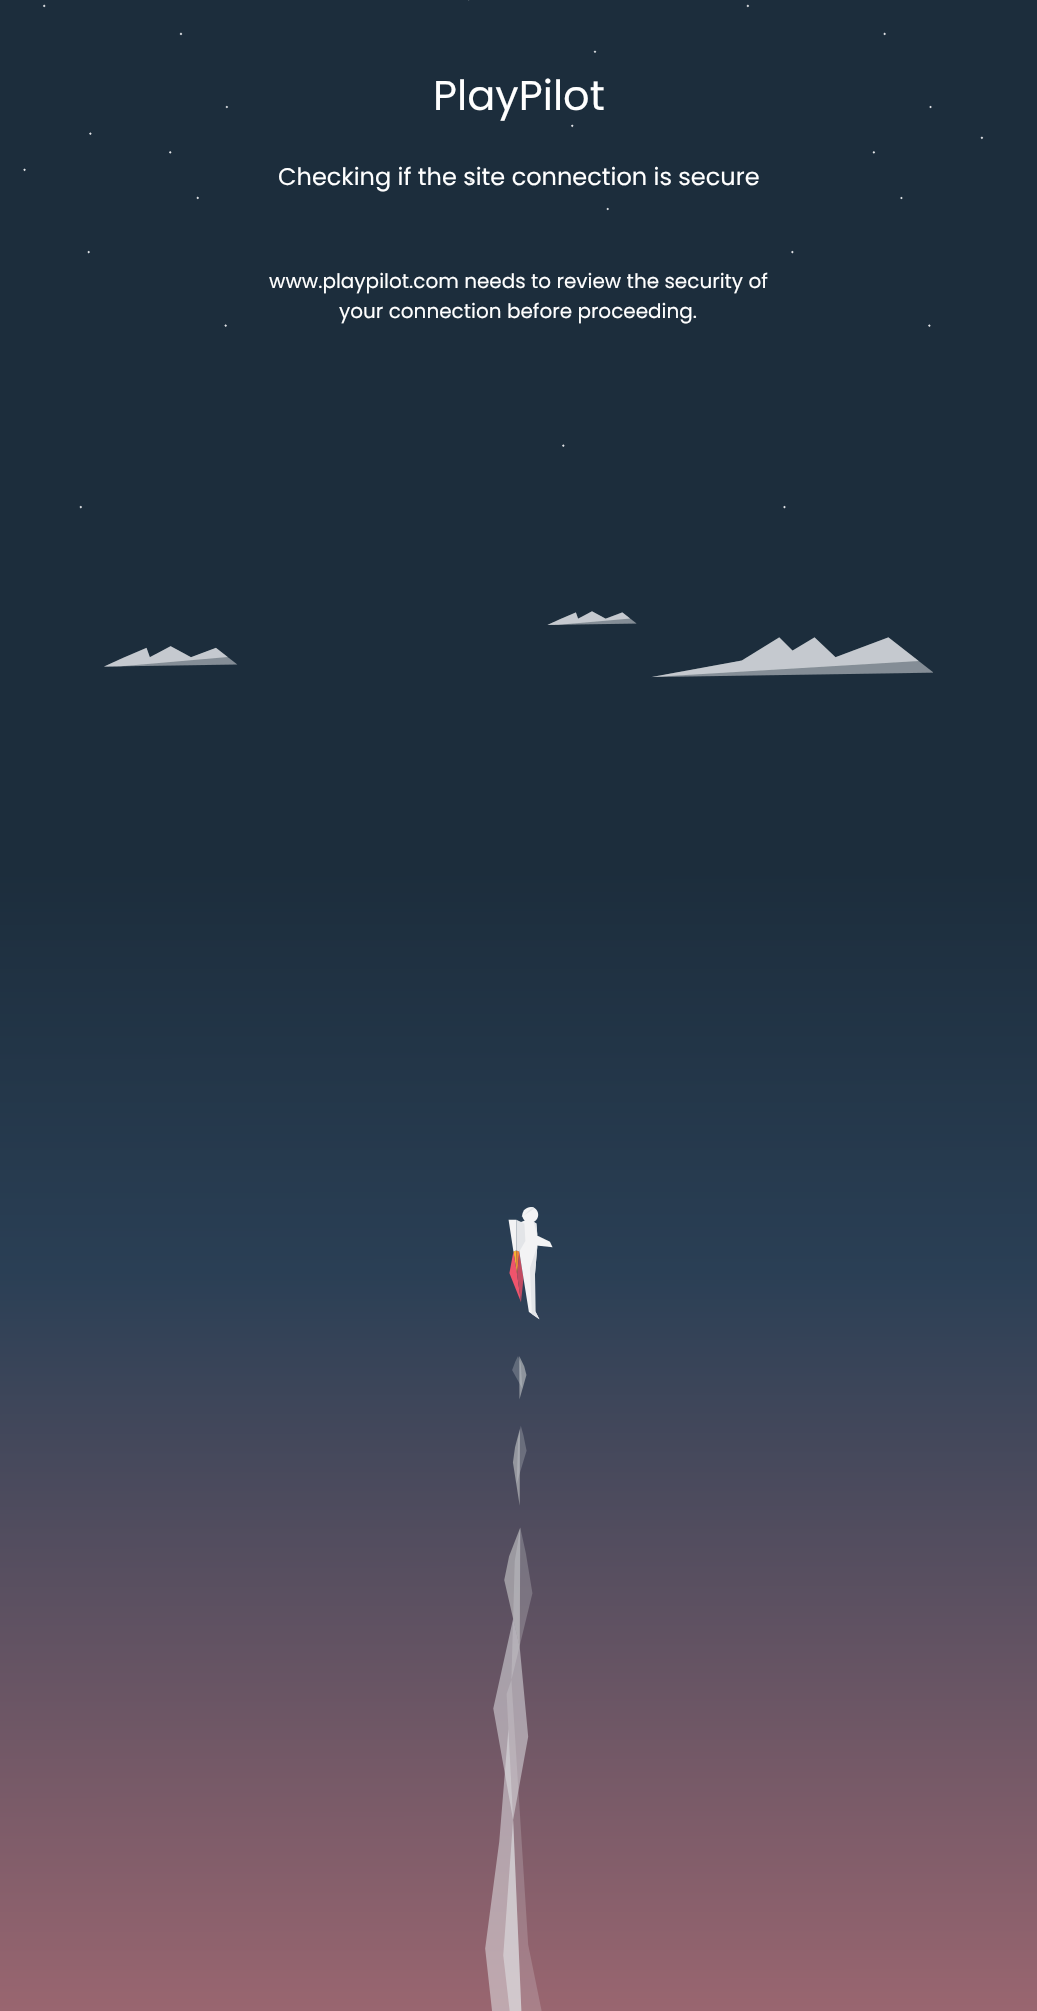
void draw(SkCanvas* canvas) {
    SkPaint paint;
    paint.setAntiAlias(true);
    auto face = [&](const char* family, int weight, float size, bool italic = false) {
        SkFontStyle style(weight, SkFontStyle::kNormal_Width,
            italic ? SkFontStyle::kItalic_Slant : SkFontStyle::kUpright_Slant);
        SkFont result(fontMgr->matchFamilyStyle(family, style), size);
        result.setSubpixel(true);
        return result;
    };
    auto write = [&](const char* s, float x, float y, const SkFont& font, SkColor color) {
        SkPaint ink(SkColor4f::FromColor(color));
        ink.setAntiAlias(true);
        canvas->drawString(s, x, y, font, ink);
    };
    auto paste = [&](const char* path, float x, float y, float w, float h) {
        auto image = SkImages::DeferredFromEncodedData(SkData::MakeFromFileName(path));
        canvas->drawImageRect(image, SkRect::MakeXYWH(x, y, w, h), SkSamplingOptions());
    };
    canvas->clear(SK_ColorWHITE);
    {
        const SkColor colors[] = {SkColorSetRGB(28, 45, 60), SkColorSetRGB(28, 45, 60), SkColorSetRGB(42, 63, 85), SkColorSetRGB(163, 105, 114)};
        const float stops[] = {0, 0.4f, 0.6f, 1};
        const SkPoint ends[] = {{518, 0}, {519, 2011}};
        paint.setShader(SkGradientShader::MakeLinear(ends, colors, stops, 4, SkTileMode::kClamp));
        paint.setAlpha(255);
    }
    canvas->drawRect(SkRect::MakeXYWH(0, 0, 1037, 64), paint);
    {
        const SkColor colors[] = {SkColorSetRGB(28, 45, 60), SkColorSetRGB(28, 45, 60), SkColorSetRGB(42, 63, 85), SkColorSetRGB(163, 105, 114)};
        const float stops[] = {0, 0.4f, 0.6f, 1};
        const SkPoint ends[] = {{518, 64}, {519, 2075}};
        paint.setShader(SkGradientShader::MakeLinear(ends, colors, stops, 4, SkTileMode::kClamp));
        paint.setAlpha(255);
    }
    canvas->drawRect(SkRect::MakeXYWH(0, 64, 1037, 1947), paint);
    paste("pic1.png", 23, 0, 961, 509);
    auto kFont1 = face("Poppins", 400, 41.5f);
    write("PlayPilot", 433, 110, kFont1, SK_ColorWHITE);
    auto kFont2 = face("Poppins", 400, 24);
    write("Checking if the site connection is secure", 278, 185, kFont2, SK_ColorWHITE);
    auto kFont3 = face("Poppins", 400, 20);
    write("www.playpilot.com needs to review the security of", 269, 288, kFont3, SK_ColorWHITE);
    write("your connection before proceeding.", 339, 318, kFont3, SK_ColorWHITE);
    paste("pic2.png", 104, 611, 829, 67);
    paste("pic3.png", 485, 1207, 68, 804);
}
